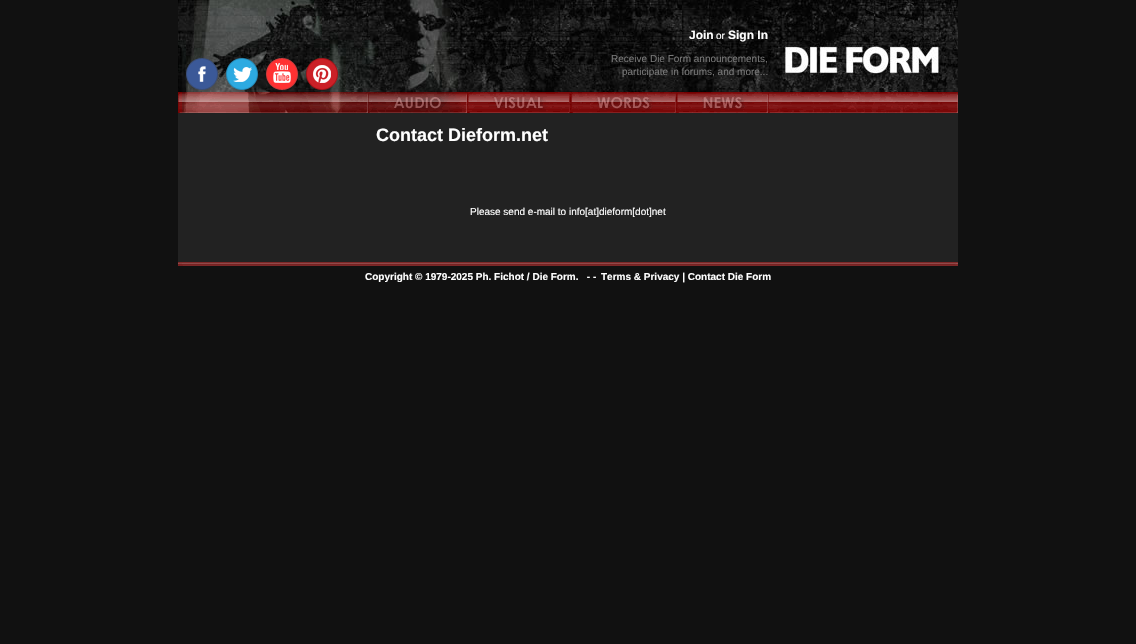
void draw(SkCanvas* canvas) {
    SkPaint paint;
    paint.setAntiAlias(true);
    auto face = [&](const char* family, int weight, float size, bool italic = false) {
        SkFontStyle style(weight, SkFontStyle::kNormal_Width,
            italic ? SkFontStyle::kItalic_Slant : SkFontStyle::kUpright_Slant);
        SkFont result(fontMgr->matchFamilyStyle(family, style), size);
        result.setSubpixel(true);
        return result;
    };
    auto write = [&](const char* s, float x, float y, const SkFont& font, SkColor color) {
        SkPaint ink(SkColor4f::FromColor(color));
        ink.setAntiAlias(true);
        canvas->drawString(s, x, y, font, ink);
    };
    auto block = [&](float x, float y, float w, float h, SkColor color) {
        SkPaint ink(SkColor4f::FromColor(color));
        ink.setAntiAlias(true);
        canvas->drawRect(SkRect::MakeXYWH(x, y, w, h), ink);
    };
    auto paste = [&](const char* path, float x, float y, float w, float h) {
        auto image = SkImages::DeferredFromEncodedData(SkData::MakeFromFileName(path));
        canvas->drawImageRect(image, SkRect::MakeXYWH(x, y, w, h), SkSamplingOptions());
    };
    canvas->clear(SkColorSetRGB(17, 17, 17));
    paste("pic1.png", 178, 0, 780, 92);
    paste("pic2.png", 186, 58, 32, 32);
    paste("pic3.png", 226, 58, 32, 32);
    paste("pic4.png", 266, 58, 32, 32);
    paste("pic5.png", 306, 58, 32, 32);
    auto kFont1 = face("Liberation Sans", 700, 12);
    write("Join", 689, 39, kFont1, SK_ColorWHITE);
    auto kFont2 = face("Liberation Sans", 400, 10);
    write("or", 716, 39, kFont2, SK_ColorWHITE);
    write("Sign In", 728, 39, kFont1, SK_ColorWHITE);
    write("Receive Die Form announcements,", 611, 62, kFont2, SkColorSetRGB(119, 119, 119));
    write("participate in forums, and more...", 622, 75, kFont2, SkColorSetRGB(119, 119, 119));
    paste("pic6.png", 178, 92, 190, 21);
    paste("pic7.png", 368, 92, 100, 21);
    paste("pic8.png", 468, 92, 103, 21);
    paste("pic9.png", 571, 92, 105, 21);
    paste("pic10.png", 676, 92, 93, 21);
    paste("pic11.png", 769, 92, 189, 21);
    block(178, 113, 780, 149, SkColorSetRGB(34, 34, 34));
    auto kFont3 = face("Liberation Sans", 700, 18);
    write("Contact Dieform.net", 376, 141, kFont3, SK_ColorWHITE);
    write("Please send e-mail to info[at]dieform[dot]net", 470, 215, kFont2, SK_ColorWHITE);
    paste("pic12.png", 178, 262, 780, 4);
    auto kFont4 = face("Liberation Sans", 700, 10);
    write("Copyright © 1979-2025 Ph. Fichot / Die Form.   - -", 365, 280, kFont4, SK_ColorWHITE);
    write("Terms & Privacy | Contact Die Form", 601, 280, kFont4, SK_ColorWHITE);
}
